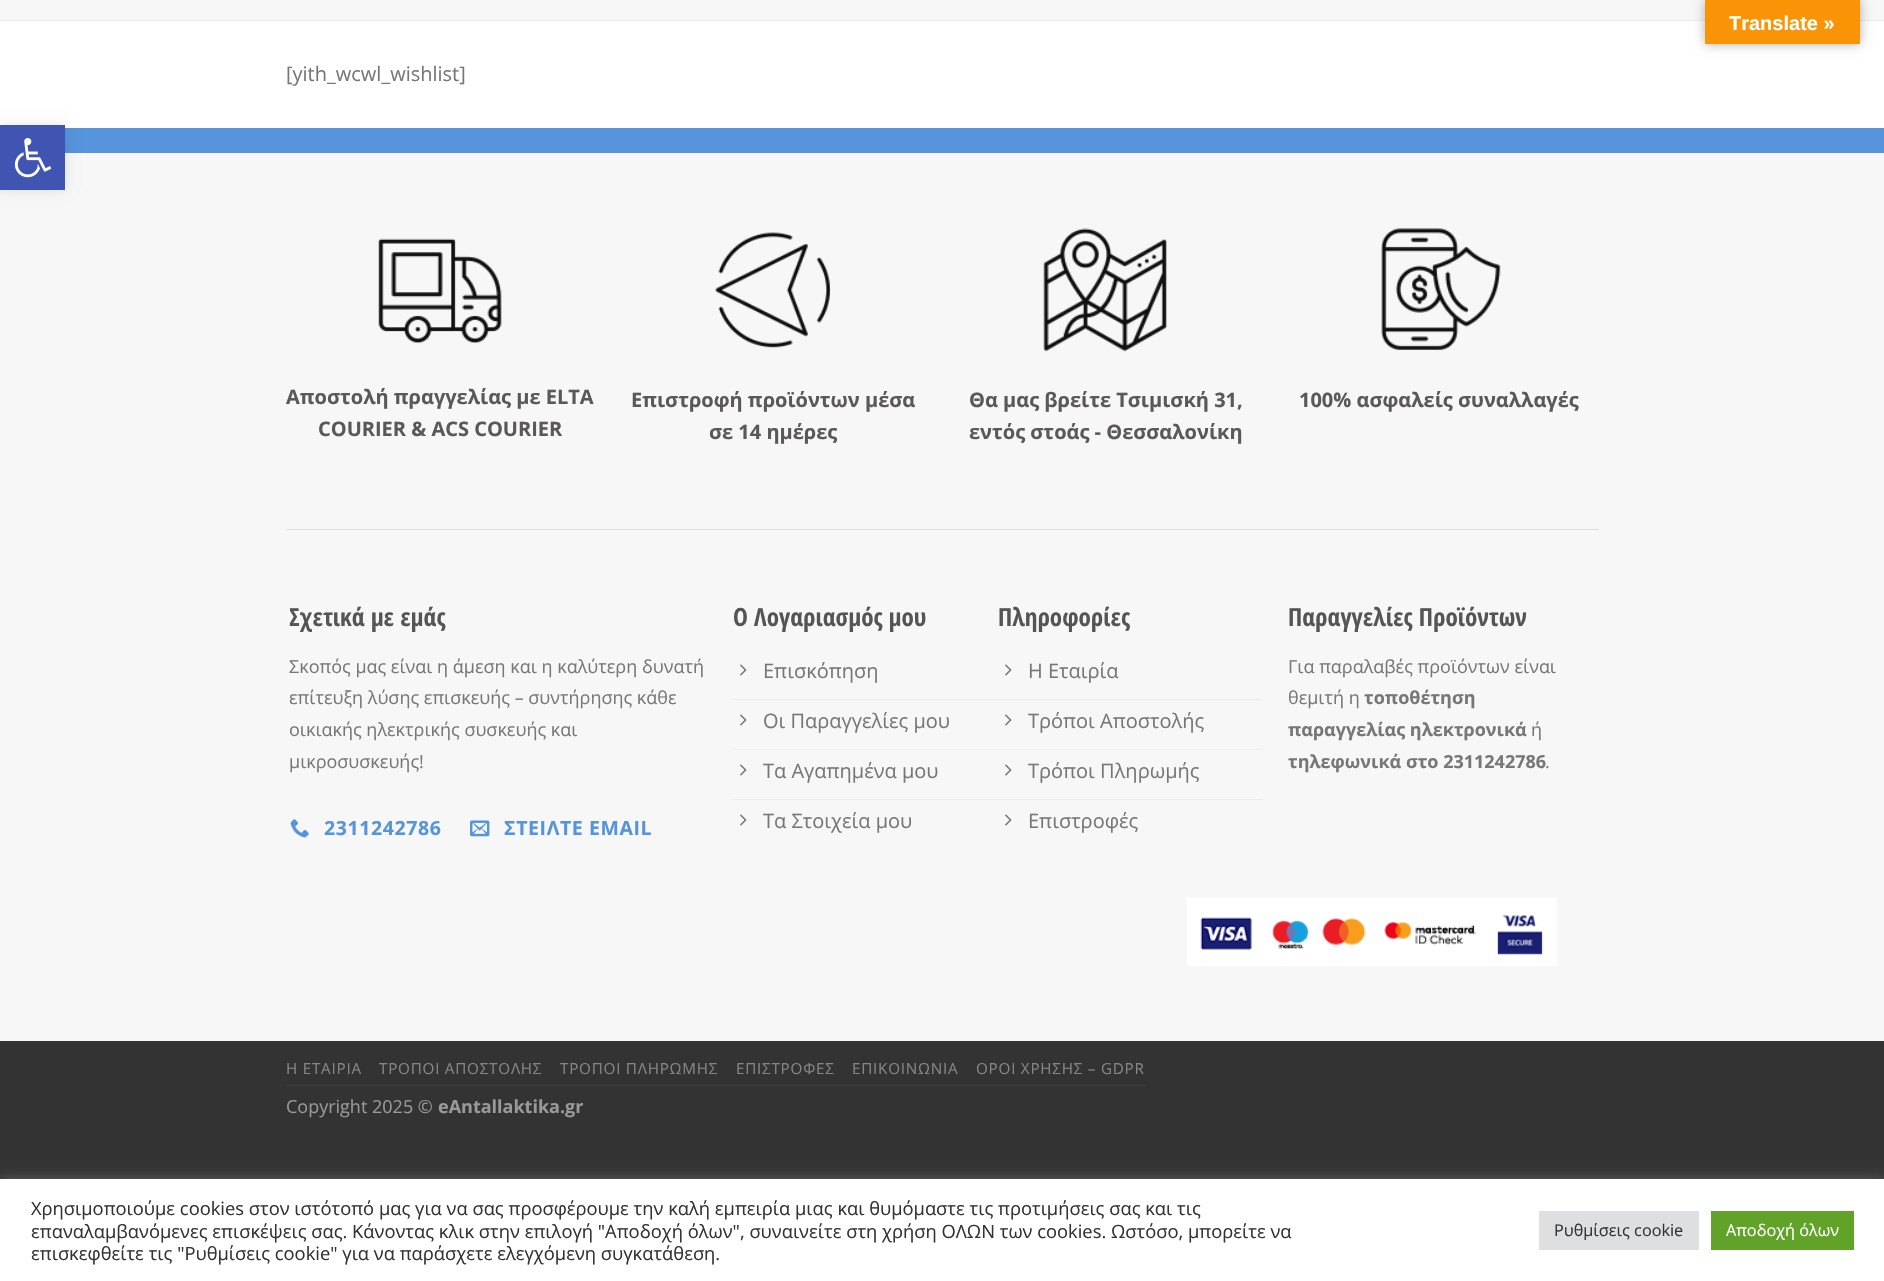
void draw(SkCanvas* canvas) {
    SkPaint paint;
    paint.setAntiAlias(true);
    auto face = [&](const char* family, int weight, float size, bool italic = false) {
        SkFontStyle style(weight, SkFontStyle::kNormal_Width,
            italic ? SkFontStyle::kItalic_Slant : SkFontStyle::kUpright_Slant);
        SkFont result(fontMgr->matchFamilyStyle(family, style), size);
        result.setSubpixel(true);
        return result;
    };
    auto write = [&](const char* s, float x, float y, const SkFont& font, SkColor color) {
        SkPaint ink(SkColor4f::FromColor(color));
        ink.setAntiAlias(true);
        canvas->drawString(s, x, y, font, ink);
    };
    auto writeSpaced = [&](const char* s, float x, float y, const SkFont& font, const SkPaint& ink, float letter, float word) {
        std::vector<SkGlyphID> glyphs(font.countText(s, strlen(s), SkTextEncoding::kUTF8));
        std::vector<float> xs(glyphs.size());
        font.textToGlyphs(s, strlen(s), SkTextEncoding::kUTF8, glyphs);
        font.getXPos(glyphs, xs, x);
        float extra = 0;
        for (size_t i = 0; i < glyphs.size(); i++) {
            xs[i] += extra;
            extra += letter + word * (glyphs[i] == font.unicharToGlyph(' '));
        }
        canvas->drawTextBlob(SkTextBlob::MakeFromPosHGlyphs(glyphs, xs, y, font), 0, 0, ink);
    };
    auto block = [&](float x, float y, float w, float h, SkColor color) {
        SkPaint ink(SkColor4f::FromColor(color));
        ink.setAntiAlias(true);
        canvas->drawRect(SkRect::MakeXYWH(x, y, w, h), ink);
    };
    auto paste = [&](const char* path, float x, float y, float w, float h) {
        auto image = SkImages::DeferredFromEncodedData(SkData::MakeFromFileName(path));
        canvas->drawImageRect(image, SkRect::MakeXYWH(x, y, w, h), SkSamplingOptions());
    };
    canvas->clear(SkColorSetRGB(51, 51, 51));
    block(0, 21, 1884, 107, SK_ColorWHITE);
    block(0, 0, 1884, 20, SkColorSetRGB(247, 247, 247));
    block(0, 20, 1884, 1, SkColorSetRGB(236, 236, 236));
    paint.setColor(SkColorSetARGB(77, 0, 0, 0));
    paint.setMaskFilter(SkMaskFilter::MakeBlur(kNormal_SkBlurStyle, 5.5f));
    canvas->drawRect(SkRect::MakeXYWH(1705, 0, 155, 44), paint);
    paint.setMaskFilter(nullptr);
    block(1705, 0, 155, 44, SkColorSetRGB(248, 148, 6));
    auto kFont1 = face("Liberation Sans", 700, 20);
    write("Translate »", 1729, 30, kFont1, SK_ColorWHITE);
    block(0, 153, 1884, 888, SkColorSetRGB(247, 247, 247));
    block(65, 128, 1819, 25, SkColorSetRGB(86, 148, 219));
    paint.setColor(SkColorSetARGB(26, 0, 0, 0));
    paint.setMaskFilter(SkMaskFilter::MakeBlur(kNormal_SkBlurStyle, 6));
    canvas->drawRect(SkRect::MakeXYWH(0, 125, 65, 65), paint);
    paint.setMaskFilter(nullptr);
    block(0, 125, 65, 65, SkColorSetRGB(64, 84, 178));
    paste("pic1.png", 14, 138, 38, 40);
    auto kFont2 = face("Open Sans", 400, 20);
    write("[yith_wcwl_wishlist]", 286, 81, kFont2, SkColorSetRGB(119, 119, 119));
    paste("pic2.png", 378, 238, 124, 106);
    auto kFont3 = face("Open Sans", 700, 20);
    write("Αποστολή πραγγελίας με ELTA", 286, 404, kFont3, SkColorSetRGB(91, 88, 88));
    write("COURIER & ACS COURIER", 318, 436, kFont3, SkColorSetRGB(91, 88, 88));
    paste("pic3.png", 715, 232, 116, 116);
    write("Επιστροφή προϊόντων μέσα", 631, 407, kFont3, SkColorSetRGB(91, 88, 88));
    write("σε 14 ημέρες", 709, 439, kFont3, SkColorSetRGB(91, 88, 88));
    paste("pic4.png", 1043, 228, 124, 124);
    write("Θα μας βρείτε Τσιμισκή 31,", 969, 407, kFont3, SkColorSetRGB(91, 88, 88));
    write("εντός στοάς - Θεσσαλονίκη", 969, 439, kFont3, SkColorSetRGB(91, 88, 88));
    paste("pic5.png", 1381, 228, 120, 122);
    write("100% ασφαλείς συναλλαγές", 1299, 407, kFont3, SkColorSetRGB(91, 88, 88));
    block(286, 529, 1313, 1, SkColorSetRGB(222, 222, 222));
    auto kFont4 = face("Open Sans Condensed", 700, 25);
    write("Σχετικά με εμάς", 289, 626, kFont4, SkColorSetRGB(85, 85, 85));
    auto kFont5 = face("Open Sans", 400, 18);
    write("Σκοπός μας είναι η άμεση και η καλύτερη δυνατή", 289, 673, kFont5, SkColorSetRGB(119, 119, 119));
    write("επίτευξη λύσης επισκευής – συντήρησης κάθε", 289, 704, kFont5, SkColorSetRGB(119, 119, 119));
    write("οικιακής ηλεκτρικής συσκευής και", 289, 736, kFont5, SkColorSetRGB(119, 119, 119));
    write("μικροσυσκευής!", 289, 768, kFont5, SkColorSetRGB(119, 119, 119));
    paste("pic6.png", 290, 819, 19, 19);
    auto kFont6 = face("Open Sans", 700, 19.5f);
    paint.setColor(SkColorSetRGB(86, 148, 219));
    writeSpaced("2311242786", 324, 835, kFont6, paint, 0.6f, 0);
    paste("pic7.png", 470, 820, 20, 17);
    writeSpaced("ΣΤΕΙΛΤΕ EMAIL", 504, 835, kFont6, paint, 0.6f, 0);
    write("Ο Λογαριασμός μου", 733, 626, kFont4, SkColorSetRGB(85, 85, 85));
    block(733, 699, 530, 1, SkColorSetRGB(236, 236, 236));
    paste("pic8.png", 740, 664, 7, 12);
    write("Επισκόπηση", 763, 678, kFont2, SkColorSetRGB(119, 119, 119));
    block(733, 749, 530, 1, SkColorSetRGB(236, 236, 236));
    paste("pic8.png", 740, 714, 7, 12);
    write("Οι Παραγγελίες μου", 763, 728, kFont2, SkColorSetRGB(119, 119, 119));
    block(733, 799, 530, 1, SkColorSetRGB(236, 236, 236));
    paste("pic8.png", 740, 764, 7, 12);
    write("Τα Αγαπημένα μου", 763, 778, kFont2, SkColorSetRGB(119, 119, 119));
    paste("pic8.png", 740, 814, 7, 12);
    write("Τα Στοιχεία μου", 763, 828, kFont2, SkColorSetRGB(119, 119, 119));
    write("Πληροφορίες", 998, 626, kFont4, SkColorSetRGB(85, 85, 85));
    paste("pic8.png", 1005, 664, 7, 12);
    write("Η Εταιρία", 1028, 678, kFont2, SkColorSetRGB(119, 119, 119));
    paste("pic8.png", 1005, 714, 7, 12);
    write("Τρόποι Αποστολής", 1028, 728, kFont2, SkColorSetRGB(119, 119, 119));
    paste("pic8.png", 1005, 764, 7, 12);
    write("Τρόποι Πληρωμής", 1028, 778, kFont2, SkColorSetRGB(119, 119, 119));
    paste("pic8.png", 1005, 814, 7, 12);
    write("Επιστροφές", 1028, 828, kFont2, SkColorSetRGB(119, 119, 119));
    write("Παραγγελίες Προϊόντων", 1288, 626, kFont4, SkColorSetRGB(85, 85, 85));
    write("Για παραλαβές προϊόντων είναι", 1288, 673, kFont5, SkColorSetRGB(119, 119, 119));
    write("θεμιτή η", 1288, 704, kFont5, SkColorSetRGB(119, 119, 119));
    auto kFont7 = face("Open Sans", 700, 18);
    write("τοποθέτηση", 1364, 704, kFont7, SkColorSetRGB(119, 119, 119));
    write("παραγγελίας ηλεκτρονικά", 1288, 736, kFont7, SkColorSetRGB(119, 119, 119));
    write("ή", 1531, 736, kFont5, SkColorSetRGB(119, 119, 119));
    write("τηλεφωνικά στο 2311242786", 1288, 768, kFont7, SkColorSetRGB(119, 119, 119));
    write(".", 1545, 768, kFont5, SkColorSetRGB(119, 119, 119));
    paste("pic9.png", 1186, 897, 371, 69);
    block(286, 1085, 859, 1, SkColorSetRGB(64, 64, 64));
    auto kFont8 = face("Open Sans", 400, 15.25f);
    paint.setColor(SkColorSetRGB(133, 133, 133));
    writeSpaced("Η ΕΤΑΙΡΙΑ", 286, 1074, kFont8, paint, 0.75f, 0);
    writeSpaced("ΤΡΟΠΟΙ ΑΠΟΣΤΟΛΗΣ", 379, 1074, kFont8, paint, 0.75f, 0);
    writeSpaced("ΤΡΟΠΟΙ ΠΛΗΡΩΜΗΣ", 560, 1074, kFont8, paint, 0.75f, 0);
    writeSpaced("ΕΠΙΣΤΡΟΦΕΣ", 736, 1074, kFont8, paint, 0.75f, 0);
    writeSpaced("ΕΠΙΚΟΙΝΩΝΙΑ", 852, 1074, kFont8, paint, 0.75f, 0);
    writeSpaced("ΟΡΟΙ ΧΡΗΣΗΣ – GDPR", 976, 1074, kFont8, paint, 0.75f, 0);
    write("Copyright 2025 ©", 286, 1113, kFont5, SkColorSetRGB(153, 153, 153));
    write("eAntallaktika.gr", 438, 1113, kFont7, SkColorSetRGB(153, 153, 153));
    paint.setColor(SkColorSetARGB(77, 172, 171, 171));
    paint.setMaskFilter(SkMaskFilter::MakeBlur(kNormal_SkBlurStyle, 6));
    canvas->drawRect(SkRect::MakeXYWH(0, 1178, 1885, 102), paint);
    paint.setMaskFilter(nullptr);
    block(0, 1179, 1884, 102, SK_ColorWHITE);
    auto kFont9 = face("Open Sans", 400, 18.33f);
    write("Χρησιμοποιούμε cookies στον ιστότοπό μας για να σας προσφέρουμε την καλή εμπειρία μιας και θυμόμαστε τις προτιμήσεις σας και τις", 31, 1215, kFont9, SkColorSetRGB(51, 51, 51));
    write("επαναλαμβανόμενες επισκέψεις σας. Κάνοντας κλικ στην επιλογή \"Αποδοχή όλων\", συναινείτε στη χρήση ΟΛΩΝ των cookies. Ωστόσο, μπορείτε να", 31, 1238, kFont9, SkColorSetRGB(51, 51, 51));
    write("επισκεφθείτε τις \"Ρυθμίσεις cookie\" για να παράσχετε ελεγχόμενη συγκατάθεση.", 31, 1260, kFont9, SkColorSetRGB(51, 51, 51));
    block(1539, 1211, 160, 39, SkColorSetRGB(222, 223, 224));
    auto kFont10 = face("Open Sans", 400, 16.25f);
    write("Ρυθμίσεις cookie", 1554, 1236, kFont10, SkColorSetRGB(51, 51, 51));
    block(1711, 1211, 143, 39, SkColorSetRGB(97, 162, 41));
    write("Αποδοχή όλων", 1726, 1236, kFont10, SK_ColorWHITE);
}
